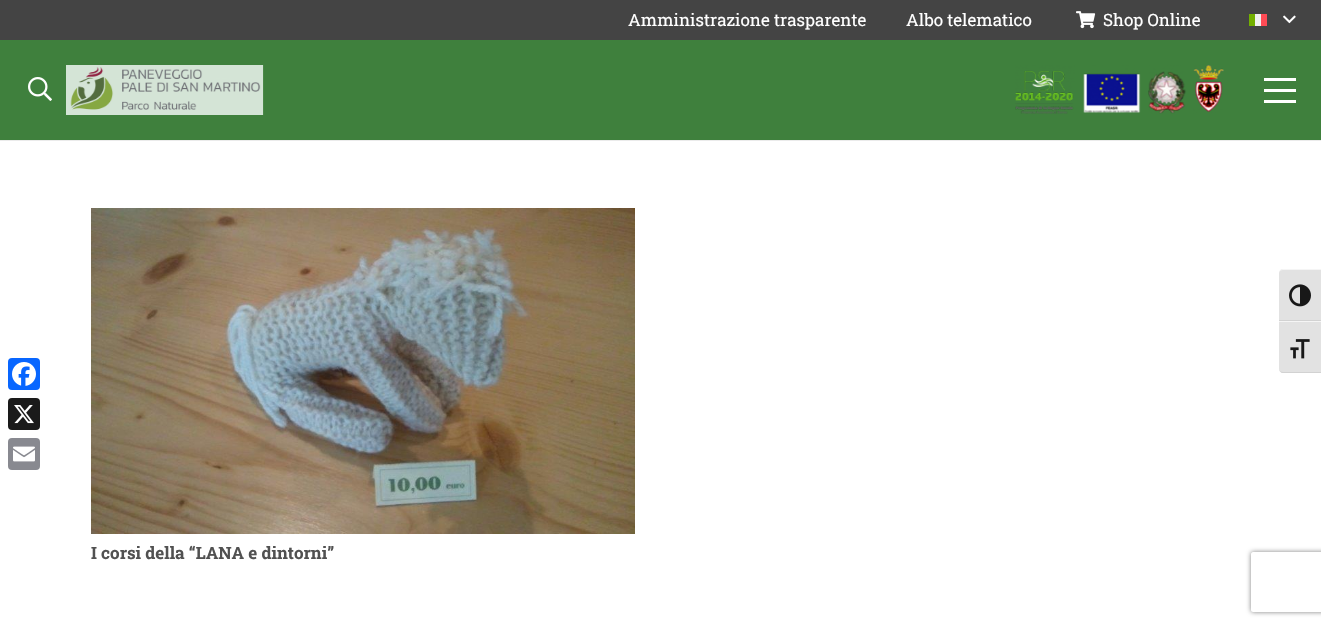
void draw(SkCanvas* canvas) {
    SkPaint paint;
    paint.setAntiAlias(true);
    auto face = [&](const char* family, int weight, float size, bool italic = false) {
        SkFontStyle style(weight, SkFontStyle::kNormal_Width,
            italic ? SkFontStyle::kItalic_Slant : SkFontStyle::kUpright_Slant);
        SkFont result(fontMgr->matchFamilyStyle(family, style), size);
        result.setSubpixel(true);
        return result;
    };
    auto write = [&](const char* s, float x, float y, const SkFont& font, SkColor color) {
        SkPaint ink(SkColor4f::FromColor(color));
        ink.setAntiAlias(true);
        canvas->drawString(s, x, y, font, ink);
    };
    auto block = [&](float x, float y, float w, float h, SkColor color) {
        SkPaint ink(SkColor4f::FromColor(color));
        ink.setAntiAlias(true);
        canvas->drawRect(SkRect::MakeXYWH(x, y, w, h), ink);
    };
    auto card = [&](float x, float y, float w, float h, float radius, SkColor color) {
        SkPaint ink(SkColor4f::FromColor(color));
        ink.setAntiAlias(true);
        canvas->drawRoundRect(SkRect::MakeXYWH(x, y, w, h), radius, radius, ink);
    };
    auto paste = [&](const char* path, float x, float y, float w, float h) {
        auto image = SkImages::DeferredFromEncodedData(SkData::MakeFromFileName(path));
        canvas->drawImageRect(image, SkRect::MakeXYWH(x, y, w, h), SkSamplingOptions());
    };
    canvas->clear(SK_ColorWHITE);
    block(0, 0, 1321, 40, SkColorSetRGB(68, 68, 68));
    auto kFont1 = face("Roboto Slab", 400, 17);
    write("Amministrazione trasparente", 628, 26, kFont1, SK_ColorWHITE);
    write("Albo telematico", 906, 26, kFont1, SK_ColorWHITE);
    paste("pic1.png", 1076, 11, 20, 18);
    write("Shop Online", 1103, 26, kFont1, SK_ColorWHITE);
    block(1255, 14, 6, 12, SkColorSetRGB(240, 240, 240));
    block(1261, 14, 6, 12, SkColorSetRGB(255, 75, 85));
    block(1249, 14, 6, 12, SkColorSetRGB(115, 175, 0));
    paste("pic2.png", 1283, 15, 13, 9);
    block(0, 140, 1321, 1, SkColorSetRGB(235, 235, 235));
    block(0, 40, 1321, 100, SkColorSetRGB(63, 128, 61));
    paste("pic3.png", 28, 77, 24, 24);
    paste("pic4.png", 66, 65, 198, 50);
    paste("pic5.png", 1015, 65, 209, 49);
    block(1264, 89, 32, 3, SK_ColorWHITE);
    block(1264, 78, 32, 3, SK_ColorWHITE);
    block(1264, 100, 32, 3, SK_ColorWHITE);
    paste("pic6.png", 91, 208, 544, 326);
    auto kFont2 = face("Roboto Slab", 700, 17);
    write("I corsi della “LANA e dintorni”", 91, 559, kFont2, SkColorSetRGB(81, 81, 81));
    paint.setColor(SkColorSetRGB(226, 226, 226));
    canvas->drawPath(SkPathBuilder().moveTo(1283, 269).lineTo(1321, 269).lineTo(1321, 321).lineTo(1279, 321).lineTo(1279, 273).cubicTo(1279, 271, 1281, 269, 1283, 269).close().detach(), paint);
    paint.setColor(SkColorSetRGB(245, 245, 245));
    canvas->drawPath(SkPathBuilder().moveTo(1283, 270).lineTo(1321, 270).lineTo(1321, 269).lineTo(1283, 269).cubicTo(1281, 269, 1279, 271, 1279, 273).cubicTo(1279, 271, 1281, 270, 1283, 270).close().detach(), paint);
    block(1279, 320, 42, 1, SkColorSetRGB(210, 210, 210));
    paste("pic7.png", 1289, 284, 22, 23);
    paint.setColor(SkColorSetRGB(226, 226, 226));
    canvas->drawPath(SkPathBuilder().moveTo(1279, 321).lineTo(1321, 321).lineTo(1321, 373).lineTo(1283, 373).cubicTo(1281, 373, 1279, 371, 1279, 369).close().detach(), paint);
    block(1279, 321, 42, 1, SkColorSetRGB(245, 245, 245));
    paint.setColor(SkColorSetRGB(210, 210, 210));
    canvas->drawPath(SkPathBuilder().moveTo(1321, 373).lineTo(1321, 372).lineTo(1283, 372).cubicTo(1281, 372, 1279, 371, 1279, 369).cubicTo(1279, 371, 1281, 373, 1283, 373).close().detach(), paint);
    paste("pic8.png", 1290, 339, 20, 20);
    card(8, 358, 32, 32, 4, SkColorSetRGB(8, 102, 255));
    paste("pic9.png", 12, 362, 24, 24);
    card(8, 398, 32, 32, 4, SkColorSetRGB(26, 26, 26));
    paste("pic10.png", 14, 405, 20, 19);
    card(8, 438, 32, 32, 4, SkColorSetRGB(136, 137, 144));
    paste("pic11.png", 13, 446, 22, 16);
    canvas->save();
    canvas->clipPath(SkPathBuilder(SkPathFillType::kEvenOdd).moveTo(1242, 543).lineTo(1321, 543).lineTo(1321, 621).lineTo(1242, 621).close().moveTo(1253, 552).lineTo(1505, 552).cubicTo(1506, 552, 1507, 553, 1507, 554).lineTo(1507, 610).cubicTo(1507, 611, 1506, 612, 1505, 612).lineTo(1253, 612).cubicTo(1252, 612, 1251, 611, 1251, 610).lineTo(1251, 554).cubicTo(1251, 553, 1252, 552, 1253, 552).close().detach(), true);
    paint.setColor(SkColorSetRGB(128, 128, 128));
    paint.setMaskFilter(SkMaskFilter::MakeBlur(kNormal_SkBlurStyle, 2.5f));
    canvas->drawRoundRect(SkRect::MakeXYWH(1251, 552, 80, 60), 2, 2, paint);
    paint.setMaskFilter(nullptr);
    canvas->restore();
}
